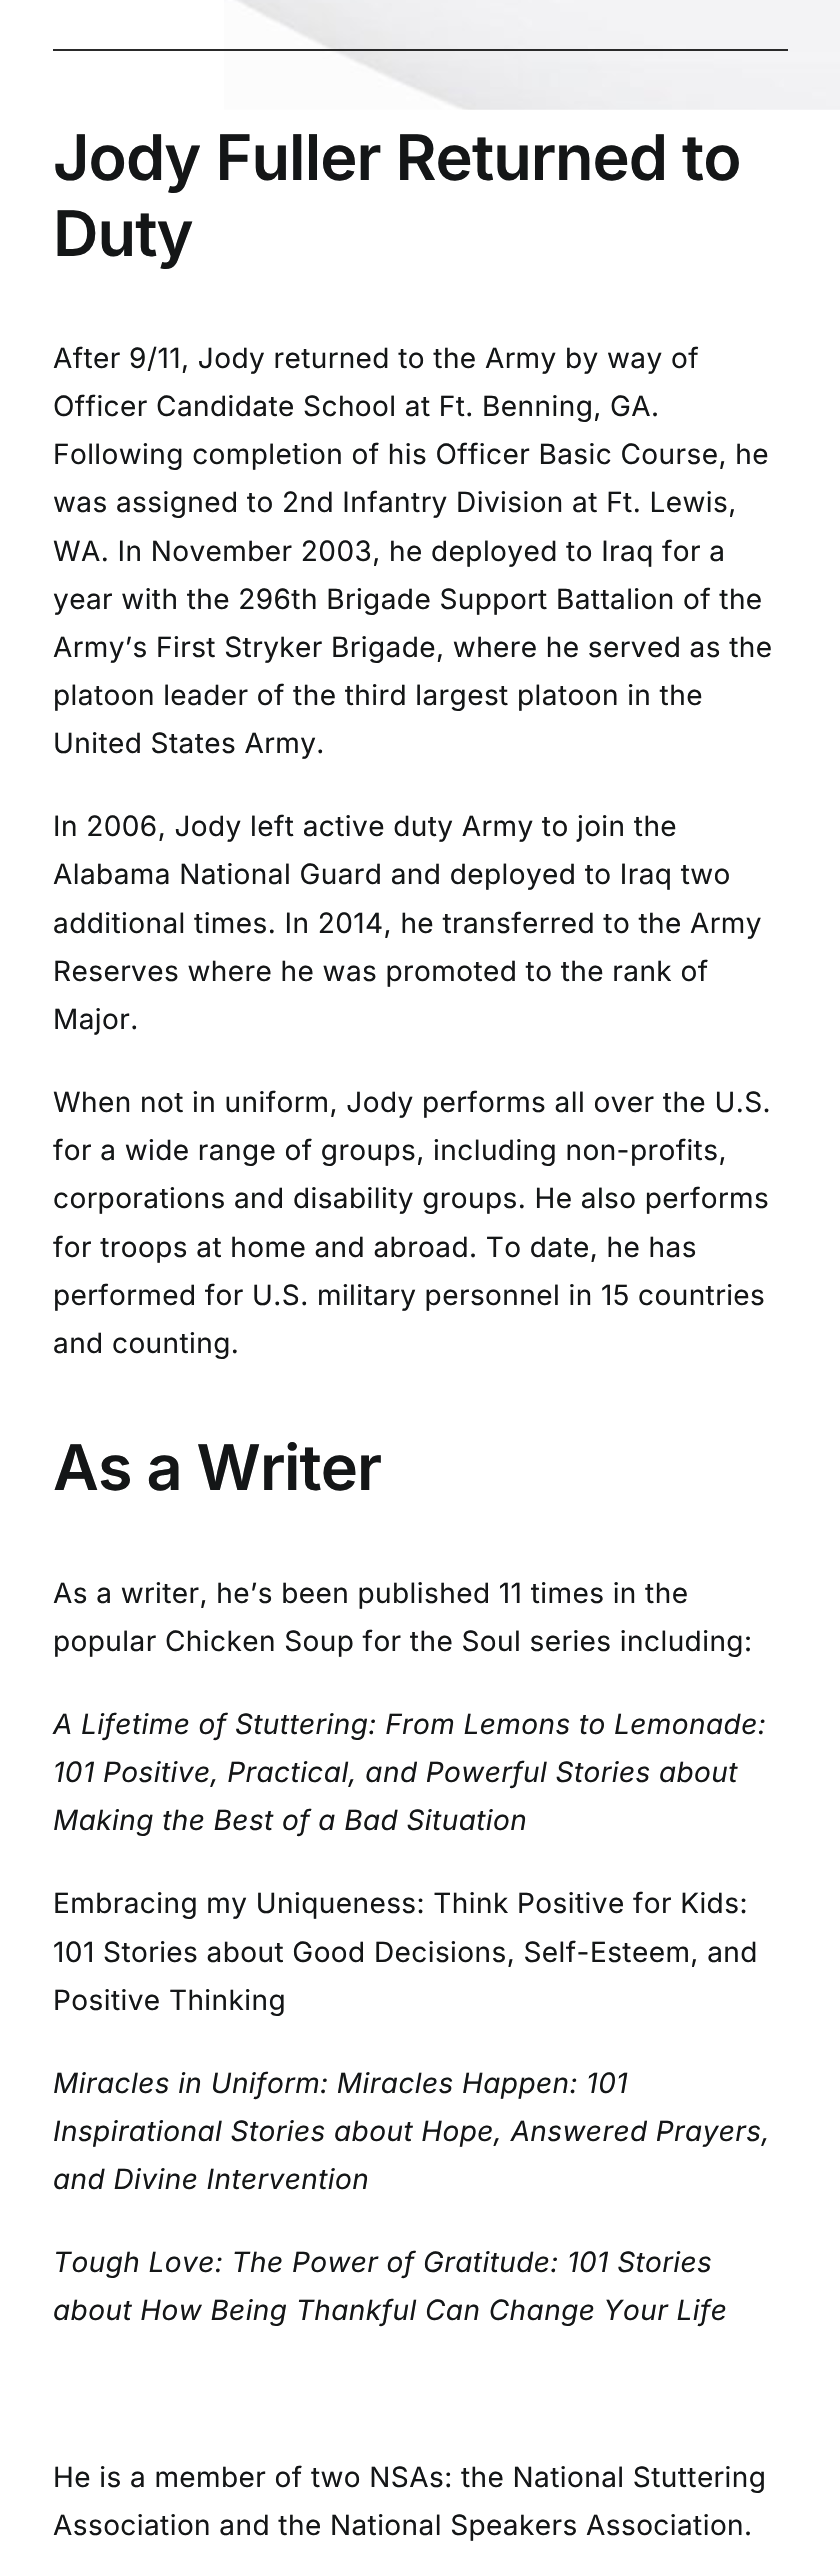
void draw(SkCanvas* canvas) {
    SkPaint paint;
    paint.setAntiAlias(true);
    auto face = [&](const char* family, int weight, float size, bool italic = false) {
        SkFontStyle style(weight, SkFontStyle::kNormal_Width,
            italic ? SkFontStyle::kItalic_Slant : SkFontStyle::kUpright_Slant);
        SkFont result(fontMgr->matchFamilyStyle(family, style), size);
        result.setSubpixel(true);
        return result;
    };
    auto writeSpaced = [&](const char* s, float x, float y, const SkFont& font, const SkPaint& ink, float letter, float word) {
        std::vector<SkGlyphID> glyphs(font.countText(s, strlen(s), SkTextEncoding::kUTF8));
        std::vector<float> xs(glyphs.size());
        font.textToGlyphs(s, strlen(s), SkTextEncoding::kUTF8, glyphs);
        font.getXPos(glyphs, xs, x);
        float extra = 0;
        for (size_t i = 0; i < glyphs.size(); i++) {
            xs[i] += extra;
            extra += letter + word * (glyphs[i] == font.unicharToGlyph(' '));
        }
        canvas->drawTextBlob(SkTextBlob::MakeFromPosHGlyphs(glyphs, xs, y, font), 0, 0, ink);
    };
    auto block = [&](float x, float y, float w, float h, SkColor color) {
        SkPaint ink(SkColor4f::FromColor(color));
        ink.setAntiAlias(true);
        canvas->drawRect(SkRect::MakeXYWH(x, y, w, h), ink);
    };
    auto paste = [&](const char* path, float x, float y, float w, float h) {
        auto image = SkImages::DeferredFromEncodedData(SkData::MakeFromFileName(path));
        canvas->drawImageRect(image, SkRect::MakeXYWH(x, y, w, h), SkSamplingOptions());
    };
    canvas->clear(SK_ColorWHITE);
    paste("pic1.png", 224, 0, 616, 110);
    block(53, 49, 735, 2, SkColorSetRGB(42, 42, 42));
    auto kFont1 = face("Inter", 600, 63);
    paint.setColor(SkColorSetRGB(20, 22, 23));
    writeSpaced("Jody Fuller Returned to", 53, 180, kFont1, paint, -0.95f, 0);
    writeSpaced("Duty", 53, 256, kFont1, paint, -0.95f, 0);
    auto kFont2 = face("Inter", 400, 28);
    writeSpaced("After 9/11, Jody returned to the Army by way of", 53, 368, kFont2, paint, 0.42f, 0);
    writeSpaced("Officer Candidate School at Ft. Benning, GA.", 53, 416, kFont2, paint, 0.42f, 0);
    writeSpaced("Following completion of his Officer Basic Course, he", 53, 464, kFont2, paint, 0.42f, 0);
    writeSpaced("was assigned to 2nd Infantry Division at Ft. Lewis,", 53, 512, kFont2, paint, 0.42f, 0);
    writeSpaced("WA. In November 2003, he deployed to Iraq for a", 53, 561, kFont2, paint, 0.42f, 0);
    writeSpaced("year with the 296th Brigade Support Battalion of the", 53, 609, kFont2, paint, 0.42f, 0);
    writeSpaced("Army’s First Stryker Brigade, where he served as the", 53, 657, kFont2, paint, 0.42f, 0);
    writeSpaced("platoon leader of the third largest platoon in the", 53, 705, kFont2, paint, 0.42f, 0);
    writeSpaced("United States Army.", 53, 753, kFont2, paint, 0.42f, 0);
    writeSpaced("In 2006, Jody left active duty Army to join the", 53, 836, kFont2, paint, 0.42f, 0);
    writeSpaced("Alabama National Guard and deployed to Iraq two", 53, 884, kFont2, paint, 0.42f, 0);
    writeSpaced("additional times. In 2014, he transferred to the Army", 53, 933, kFont2, paint, 0.42f, 0);
    writeSpaced("Reserves where he was promoted to the rank of", 53, 981, kFont2, paint, 0.42f, 0);
    writeSpaced("Major.", 53, 1029, kFont2, paint, 0.42f, 0);
    writeSpaced("When not in uniform, Jody performs all over the U.S.", 53, 1112, kFont2, paint, 0.42f, 0);
    writeSpaced("for a wide range of groups, including non-profits,", 53, 1160, kFont2, paint, 0.42f, 0);
    writeSpaced("corporations and disability groups. He also performs", 53, 1208, kFont2, paint, 0.42f, 0);
    writeSpaced("for troops at home and abroad. To date, he has", 53, 1257, kFont2, paint, 0.42f, 0);
    writeSpaced("performed for U.S. military personnel in 15 countries", 53, 1305, kFont2, paint, 0.42f, 0);
    writeSpaced("and counting.", 53, 1353, kFont2, paint, 0.42f, 0);
    writeSpaced("As a Writer", 53, 1490, kFont1, paint, -0.95f, 0);
    writeSpaced("As a writer, he’s been published 11 times in the", 53, 1603, kFont2, paint, 0.42f, 0);
    writeSpaced("popular Chicken Soup for the Soul series including:", 53, 1651, kFont2, paint, 0.42f, 0);
    auto kFont3 = face("Inter", 400, 28, true);
    writeSpaced("A Lifetime of Stuttering: From Lemons to Lemonade:", 53, 1734, kFont3, paint, 0.42f, 0);
    writeSpaced("101 Positive, Practical, and Powerful Stories about", 53, 1782, kFont3, paint, 0.42f, 0);
    writeSpaced("Making the Best of a Bad Situation", 53, 1830, kFont3, paint, 0.42f, 0);
    writeSpaced("Embracing my Uniqueness: Think Positive for Kids:", 53, 1913, kFont2, paint, 0.42f, 0);
    writeSpaced("101 Stories about Good Decisions, Self-Esteem, and", 53, 1962, kFont2, paint, 0.42f, 0);
    writeSpaced("Positive Thinking", 53, 2010, kFont2, paint, 0.42f, 0);
    writeSpaced("Miracles in Uniform: Miracles Happen: 101", 53, 2093, kFont3, paint, 0.42f, 0);
    writeSpaced("Inspirational Stories about Hope, Answered Prayers,", 53, 2141, kFont3, paint, 0.42f, 0);
    writeSpaced("and Divine Intervention", 53, 2189, kFont3, paint, 0.42f, 0);
    writeSpaced("Tough Love: The Power of Gratitude: 101 Stories", 53, 2272, kFont3, paint, 0.42f, 0);
    writeSpaced("about How Being Thankful Can Change Your Life", 53, 2320, kFont3, paint, 0.42f, 0);
    writeSpaced("He is a member of two NSAs: the National Stuttering", 53, 2487, kFont2, paint, 0.42f, 0);
    writeSpaced("Association and the National Speakers Association.", 53, 2535, kFont2, paint, 0.42f, 0);
}
